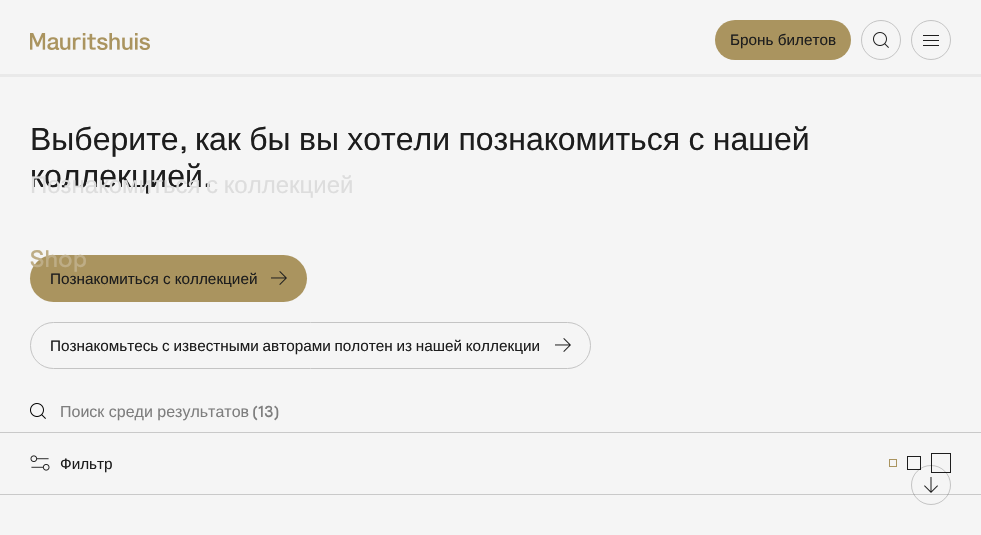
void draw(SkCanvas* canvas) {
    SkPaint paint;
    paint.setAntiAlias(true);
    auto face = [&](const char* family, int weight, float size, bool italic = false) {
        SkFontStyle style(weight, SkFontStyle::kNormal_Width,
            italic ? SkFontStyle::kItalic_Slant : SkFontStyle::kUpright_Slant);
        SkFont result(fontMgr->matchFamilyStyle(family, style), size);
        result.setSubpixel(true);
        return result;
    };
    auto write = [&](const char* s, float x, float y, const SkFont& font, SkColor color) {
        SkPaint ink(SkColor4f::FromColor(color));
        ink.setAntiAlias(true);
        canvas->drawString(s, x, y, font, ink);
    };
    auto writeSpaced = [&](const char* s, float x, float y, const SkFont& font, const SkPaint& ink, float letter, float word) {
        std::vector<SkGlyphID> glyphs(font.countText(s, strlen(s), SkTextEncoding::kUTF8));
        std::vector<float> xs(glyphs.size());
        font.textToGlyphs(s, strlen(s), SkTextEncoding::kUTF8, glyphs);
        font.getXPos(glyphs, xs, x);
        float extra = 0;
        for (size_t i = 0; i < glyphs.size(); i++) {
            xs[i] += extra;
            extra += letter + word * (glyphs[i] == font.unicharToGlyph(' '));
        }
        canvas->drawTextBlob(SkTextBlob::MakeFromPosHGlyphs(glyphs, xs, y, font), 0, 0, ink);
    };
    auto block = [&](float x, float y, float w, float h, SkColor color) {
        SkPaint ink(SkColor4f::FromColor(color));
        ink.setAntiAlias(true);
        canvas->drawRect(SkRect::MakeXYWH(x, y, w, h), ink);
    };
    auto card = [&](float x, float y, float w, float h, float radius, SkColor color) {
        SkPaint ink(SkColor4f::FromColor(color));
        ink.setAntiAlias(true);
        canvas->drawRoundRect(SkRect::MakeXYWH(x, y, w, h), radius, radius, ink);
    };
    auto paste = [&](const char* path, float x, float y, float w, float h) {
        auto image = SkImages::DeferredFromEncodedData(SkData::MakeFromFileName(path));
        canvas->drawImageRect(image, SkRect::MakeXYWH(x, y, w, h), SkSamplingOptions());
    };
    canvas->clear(SkColorSetRGB(245, 245, 245));
    paste("pic1.png", 30, 33, 120, 17);
    card(715, 20, 136, 40, 20, SkColorSetRGB(170, 148, 95));
    auto kFont1 = face("Liberation Sans", 400, 15.3f);
    write("Бронь билетов", 730, 45, kFont1, SkColorSetRGB(29, 29, 29));
    paint.setStyle(SkPaint::kStroke_Style);
    paint.setStrokeWidth(1);
    paint.setColor(SkColorSetRGB(196, 196, 196));
    canvas->drawCircle(881, 40, 19.5f, paint);
    paste("pic2.png", 873, 32, 16, 16);
    canvas->drawCircle(931, 40, 19.5f, paint);
    paste("pic3.png", 923, 35, 16, 11);
    auto kFont2 = face("Liberation Sans", 400, 32);
    write("коллекцией", 30, 187, kFont2, SkColorSetRGB(29, 29, 29));
    auto kFont3 = face("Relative", 500, 32);
    write(".", 203, 187, kFont3, SkColorSetRGB(29, 29, 29));
    auto kFont4 = face("Liberation Sans", 400, 24);
    paint.setStyle(SkPaint::kFill_Style);
    paint.setColor(SkColorSetRGB(221, 221, 221));
    writeSpaced("Познакомиться с коллекцией", 30, 193, kFont4, paint, 0, -1);
    card(30, 255, 277, 47, 23.5f, SkColorSetRGB(170, 148, 95));
    auto kFont5 = face("Relative", 500, 24);
    write("Shop", 30, 267, kFont5, SkColorSetRGB(190, 173, 134));
    write("Выберите", 30, 150, kFont2, SkColorSetRGB(29, 29, 29));
    write(",", 179, 150, kFont3, SkColorSetRGB(29, 29, 29));
    paint.setColor(SkColorSetRGB(29, 29, 29));
    writeSpaced("как бы вы хотели познакомиться с нашей", 195, 150, kFont2, paint, 0, -0.5f);
    write("Познакомиться с коллекцией", 50, 284, kFont1, SkColorSetRGB(29, 29, 29));
    paste("pic4.png", 271, 271, 16, 14);
    paint.setStyle(SkPaint::kStroke_Style);
    paint.setColor(SkColorSetRGB(196, 196, 196));
    canvas->drawRoundRect(SkRect::MakeXYWH(30.5f, 322.5f, 560, 46), 23, 23, paint);
    paint.setStyle(SkPaint::kFill_Style);
    paint.setColor(SkColorSetRGB(29, 29, 29));
    writeSpaced("Познакомьтесь с известными авторами полотен из нашей коллекции", 50, 351, kFont1, paint, 0, -0.5f);
    paste("pic5.png", 555, 338, 16, 14);
    block(0, 74, 981, 3, SkColorSetRGB(233, 233, 233));
    block(0, 494, 981, 1, SkColorSetRGB(201, 201, 201));
    block(0, 432, 981, 1, SkColorSetRGB(201, 201, 201));
    paste("pic6.png", 30, 403, 16, 16);
    auto kFont6 = face("Liberation Sans", 400, 16);
    write("Поиск среди результатов", 60, 417, kFont6, SkColorSetRGB(126, 126, 126));
    auto kFont7 = face("Relative", 500, 16);
    write("(13)", 252, 417, kFont7, SkColorSetRGB(126, 126, 126));
    paste("pic7.png", 30, 455, 20, 16);
    write("Фильтр", 60, 469, kFont1, SkColorSetRGB(29, 29, 29));
    paint.setStyle(SkPaint::kStroke_Style);
    paint.setColor(SkColorSetRGB(170, 148, 95));
    canvas->drawRect(SkRect::MakeXYWH(889.5f, 459.5f, 7, 7), paint);
    paint.setColor(SkColorSetRGB(29, 29, 29));
    canvas->drawRect(SkRect::MakeXYWH(907.5f, 456.5f, 13, 13), paint);
    canvas->drawRect(SkRect::MakeXYWH(931.5f, 453.5f, 19, 19), paint);
    paint.setColor(SkColorSetARGB(51, 0, 0, 0));
    canvas->drawCircle(931, 485, 19.5f, paint);
    paste("pic8.png", 924, 477, 14, 16);
}
